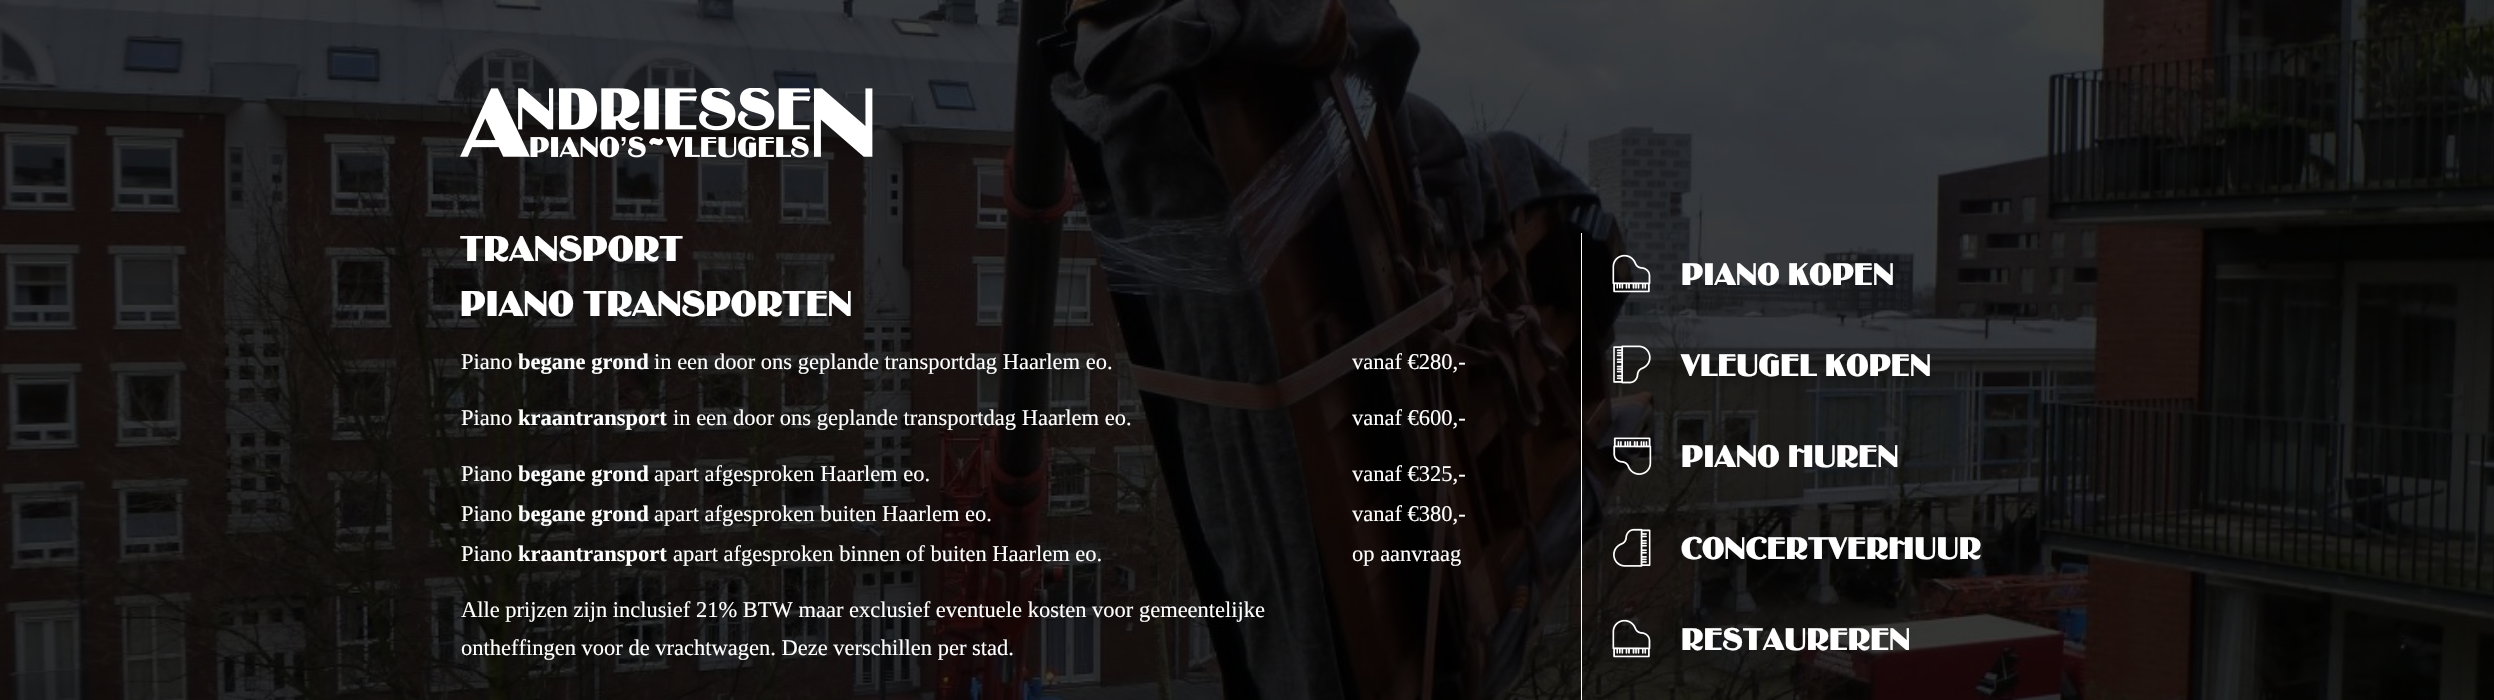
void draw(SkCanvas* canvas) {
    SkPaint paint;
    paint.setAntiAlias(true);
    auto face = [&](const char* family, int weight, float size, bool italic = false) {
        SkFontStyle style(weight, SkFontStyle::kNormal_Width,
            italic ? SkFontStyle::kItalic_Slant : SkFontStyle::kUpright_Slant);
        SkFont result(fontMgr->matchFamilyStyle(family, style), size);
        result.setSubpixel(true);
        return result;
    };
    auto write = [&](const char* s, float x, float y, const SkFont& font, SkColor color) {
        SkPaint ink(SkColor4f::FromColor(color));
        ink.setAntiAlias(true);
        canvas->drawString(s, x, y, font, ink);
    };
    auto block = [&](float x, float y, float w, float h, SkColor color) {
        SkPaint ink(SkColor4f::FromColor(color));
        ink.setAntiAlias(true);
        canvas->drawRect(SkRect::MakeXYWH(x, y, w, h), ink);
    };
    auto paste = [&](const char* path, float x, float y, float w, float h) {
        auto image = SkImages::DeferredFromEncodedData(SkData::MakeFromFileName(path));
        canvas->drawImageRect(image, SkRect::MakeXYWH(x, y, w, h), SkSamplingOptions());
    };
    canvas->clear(SK_ColorWHITE);
    paste("pic1.png", 0, 0, 2494, 700);
    paste("pic2.png", 460, 88, 413, 70);
    auto kFont1 = face("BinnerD", 400, 37.5f);
    write("TRANSPORT", 460, 261, kFont1, SK_ColorWHITE);
    write("PIANO TRANSPORTEN", 460, 316, kFont1, SK_ColorWHITE);
    auto kFont2 = face("Liberation Serif", 400, 22.5f);
    write("Piano", 461, 369, kFont2, SK_ColorWHITE);
    auto kFont3 = face("Liberation Serif", 700, 22.5f);
    write("begane grond", 518, 369, kFont3, SK_ColorWHITE);
    write("in een door ons geplande transportdag Haarlem eo.", 654, 369, kFont2, SK_ColorWHITE);
    write("vanaf €280,-", 1352, 369, kFont2, SK_ColorWHITE);
    write("Piano", 461, 425, kFont2, SK_ColorWHITE);
    write("kraantransport", 518, 425, kFont3, SK_ColorWHITE);
    write("in een door ons geplande transportdag Haarlem eo.", 673, 425, kFont2, SK_ColorWHITE);
    write("vanaf €600,-", 1352, 425, kFont2, SK_ColorWHITE);
    write("Piano", 461, 481, kFont2, SK_ColorWHITE);
    write("begane grond", 518, 481, kFont3, SK_ColorWHITE);
    write("apart afgesproken Haarlem eo.", 654, 481, kFont2, SK_ColorWHITE);
    write("vanaf €325,-", 1352, 481, kFont2, SK_ColorWHITE);
    write("Piano", 461, 521, kFont2, SK_ColorWHITE);
    write("begane grond", 518, 521, kFont3, SK_ColorWHITE);
    write("apart afgesproken buiten Haarlem eo.", 654, 521, kFont2, SK_ColorWHITE);
    write("vanaf €380,-", 1352, 521, kFont2, SK_ColorWHITE);
    write("Piano", 461, 561, kFont2, SK_ColorWHITE);
    write("kraantransport", 518, 561, kFont3, SK_ColorWHITE);
    write("apart afgesproken binnen of buiten Haarlem eo.", 673, 561, kFont2, SK_ColorWHITE);
    write("op aanvraag", 1352, 561, kFont2, SK_ColorWHITE);
    write("Alle prijzen zijn inclusief 21% BTW maar exclusief eventuele kosten voor gemeentelijke", 461, 617, kFont2, SK_ColorWHITE);
    write("ontheffingen voor de vrachtwagen. Deze verschillen per stad.", 461, 655, kFont2, SK_ColorWHITE);
    block(1581, 233, 1, 467, SK_ColorWHITE);
    paste("pic3.png", 1612, 254, 39, 39);
    auto kFont4 = face("BinnerD", 400, 32.5f);
    write("PIANO KOPEN", 1681, 285, kFont4, SK_ColorWHITE);
    paste("pic4.png", 1613, 345, 38, 39);
    write("VLEUGEL KOPEN", 1681, 376, kFont4, SK_ColorWHITE);
    paste("pic5.png", 1613, 437, 39, 38);
    write("PIANO HUREN", 1681, 467, kFont4, SK_ColorWHITE);
    paste("pic6.png", 1613, 528, 38, 39);
    write("CONCERTVERHUUR", 1681, 559, kFont4, SK_ColorWHITE);
    paste("pic7.png", 1612, 619, 39, 39);
    write("RESTAUREREN", 1681, 650, kFont4, SK_ColorWHITE);
}
